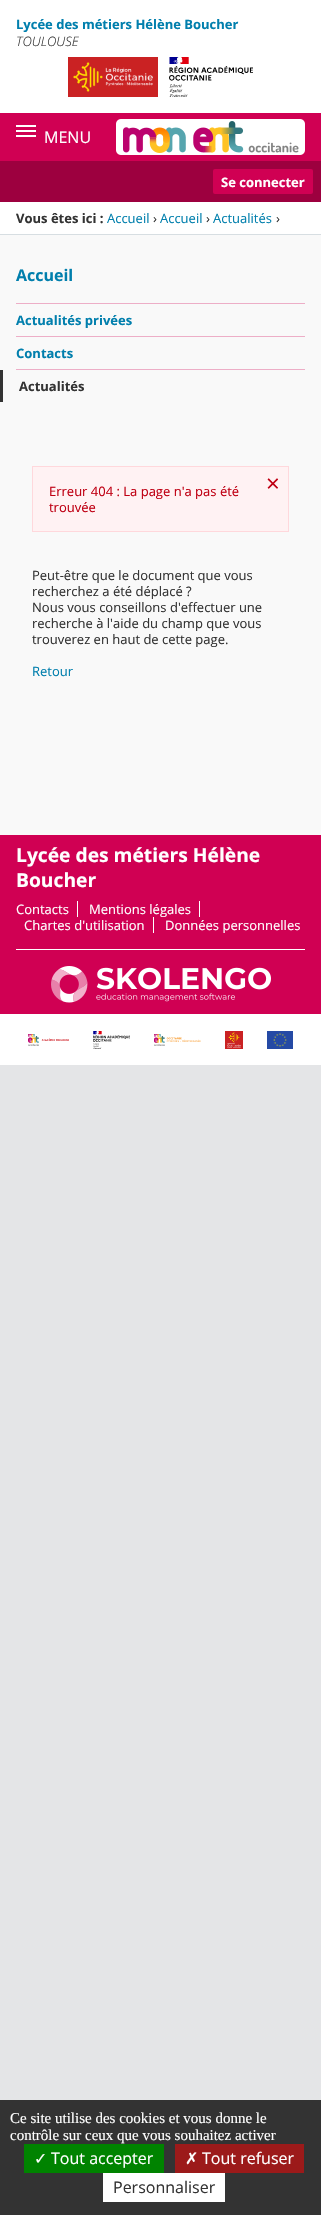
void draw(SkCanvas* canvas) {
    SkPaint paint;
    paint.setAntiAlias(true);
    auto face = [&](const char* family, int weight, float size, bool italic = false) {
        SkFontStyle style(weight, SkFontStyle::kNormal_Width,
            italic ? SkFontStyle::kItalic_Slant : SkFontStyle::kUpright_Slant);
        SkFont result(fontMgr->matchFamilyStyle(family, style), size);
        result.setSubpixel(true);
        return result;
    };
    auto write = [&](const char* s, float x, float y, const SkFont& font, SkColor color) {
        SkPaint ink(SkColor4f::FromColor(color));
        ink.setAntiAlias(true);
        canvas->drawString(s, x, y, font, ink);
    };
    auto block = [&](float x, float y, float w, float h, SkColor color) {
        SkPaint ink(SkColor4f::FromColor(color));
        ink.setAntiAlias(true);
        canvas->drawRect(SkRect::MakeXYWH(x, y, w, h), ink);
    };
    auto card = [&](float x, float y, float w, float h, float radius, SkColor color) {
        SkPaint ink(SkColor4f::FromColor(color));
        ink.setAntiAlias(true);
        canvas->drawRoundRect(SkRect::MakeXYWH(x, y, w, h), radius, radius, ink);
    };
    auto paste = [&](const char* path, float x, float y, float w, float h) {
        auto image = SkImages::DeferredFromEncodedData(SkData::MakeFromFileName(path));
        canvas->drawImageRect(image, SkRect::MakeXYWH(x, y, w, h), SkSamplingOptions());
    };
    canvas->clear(SkColorSetRGB(228, 229, 231));
    block(0, 0, 321, 1065, SK_ColorWHITE);
    auto kFont1 = face("Open Sans", 700, 13);
    write("Lycée des métiers Hélène Boucher", 16, 29, kFont1, SkColorSetRGB(1, 127, 173));
    auto kFont2 = face("Open Sans", 300, 13, true);
    write("TOULOUSE", 16, 46, kFont2, SkColorSetRGB(51, 51, 51));
    paste("pic1.png", 68, 57, 90, 40);
    paste("pic2.png", 169, 57, 84, 40);
    block(0, 113, 321, 48, SkColorSetRGB(208, 0, 83));
    block(16, 125, 20, 2, SK_ColorWHITE);
    block(16, 130, 20, 2, SK_ColorWHITE);
    block(16, 135, 20, 2, SK_ColorWHITE);
    auto kFont3 = face("Open Sans", 400, 16);
    write("MENU", 44, 143, kFont3, SK_ColorWHITE);
    block(0, 161, 321, 41, SkColorSetRGB(157, 0, 63));
    paste("pic3.png", 116, 119, 189, 36);
    card(213, 169, 100, 25, 2, SkColorSetRGB(208, 0, 83));
    write("Se connecter", 221, 187, kFont1, SK_ColorWHITE);
    block(0, 234, 321, 1, SkColorSetRGB(215, 222, 226));
    write("Vous êtes ici :", 16, 223, kFont1, SkColorSetRGB(51, 51, 51));
    auto kFont4 = face("Open Sans", 400, 13);
    write("Accueil", 107, 223, kFont4, SkColorSetRGB(1, 127, 173));
    write("›", 153, 223, kFont4, SkColorSetRGB(51, 51, 51));
    write("Accueil", 160, 223, kFont4, SkColorSetRGB(1, 127, 173));
    write("›", 206, 223, kFont4, SkColorSetRGB(51, 51, 51));
    write("Actualités", 213, 223, kFont4, SkColorSetRGB(1, 127, 173));
    write("›", 276, 223, kFont4, SkColorSetRGB(51, 51, 51));
    block(0, 235, 321, 600, SkColorSetRGB(249, 249, 249));
    auto kFont5 = face("Open Sans", 700, 16);
    write("Accueil", 16, 281, kFont5, SkColorSetRGB(1, 127, 173));
    block(16, 303, 289, 1, SkColorSetRGB(237, 174, 199));
    block(16, 336, 289, 1, SkColorSetRGB(237, 174, 199));
    write("Actualités privées", 16, 325, kFont1, SkColorSetRGB(1, 127, 173));
    block(16, 369, 289, 1, SkColorSetRGB(237, 174, 199));
    write("Contacts", 16, 358, kFont1, SkColorSetRGB(1, 127, 173));
    block(0, 370, 3, 32, SkColorSetRGB(51, 51, 51));
    write("Actualités", 19, 391, kFont1, SkColorSetRGB(51, 51, 51));
    paint.setColor(SkColorSetRGB(255, 242, 243));
    canvas->drawRect(SkRect::MakeXYWH(32.5f, 466.5f, 256, 65), paint);
    paint.setStyle(SkPaint::kStroke_Style);
    paint.setStrokeWidth(1);
    paint.setColor(SkColorSetRGB(255, 216, 220));
    canvas->drawRect(SkRect::MakeXYWH(32.5f, 466.5f, 256, 65), paint);
    auto kFont6 = face("Open Sans", 400, 24);
    write("×", 266, 492, kFont6, SkColorSetRGB(191, 0, 19));
    write("Erreur 404 : La page n'a pas été", 49, 496, kFont4, SkColorSetRGB(191, 0, 19));
    write("trouvée", 49, 512, kFont4, SkColorSetRGB(191, 0, 19));
    write("Peut-être que le document que vous", 32, 580, kFont4, SkColorSetRGB(51, 51, 51));
    write("recherchez a été déplacé ?", 32, 596, kFont4, SkColorSetRGB(51, 51, 51));
    write("Nous vous conseillons d'effectuer une", 32, 612, kFont4, SkColorSetRGB(51, 51, 51));
    write("recherche à l'aide du champ que vous", 32, 628, kFont4, SkColorSetRGB(51, 51, 51));
    write("trouverez en haut de cette page.", 32, 644, kFont4, SkColorSetRGB(51, 51, 51));
    write("Retour", 32, 676, kFont4, SkColorSetRGB(1, 127, 173));
    block(0, 835, 321, 179, SkColorSetRGB(208, 0, 83));
    auto kFont7 = face("Open Sans", 700, 19.25f);
    write("Lycée des métiers Hélène", 16, 862, kFont7, SK_ColorWHITE);
    write("Boucher", 16, 887, kFont7, SK_ColorWHITE);
    block(77, 901, 1, 16, SK_ColorWHITE);
    write("Contacts", 16, 914, kFont4, SK_ColorWHITE);
    block(199, 901, 1, 16, SK_ColorWHITE);
    write("Mentions légales", 89, 914, kFont4, SK_ColorWHITE);
    block(153, 917, 1, 16, SK_ColorWHITE);
    write("Chartes d'utilisation", 24, 930, kFont4, SK_ColorWHITE);
    write("Données personnelles", 165, 930, kFont4, SK_ColorWHITE);
    block(16, 949, 289, 1, SK_ColorWHITE);
    paste("pic4.png", 51, 966, 220, 37);
    paste("pic5.png", 28, 1034, 41, 12);
    paste("pic6.png", 93, 1031, 37, 18);
    paste("pic7.png", 154, 1034, 47, 12);
    paste("pic8.png", 225, 1031, 18, 18);
    paste("pic9.png", 267, 1031, 26, 18);
    block(0, 2100, 321, 115, SkColorSetRGB(51, 51, 51));
    auto kFont8 = face("Liberation Serif", 400, 15);
    write("Ce site utilise des cookies et vous donne le", 10, 2123, kFont8, SK_ColorWHITE);
    write("contrôle sur ceux que vous souhaitez activer", 10, 2140, kFont8, SK_ColorWHITE);
    block(24, 2144, 140, 29, SkColorSetRGB(0, 131, 0));
    auto kFont9 = face("DejaVu Sans", 400, 16);
    write("✓", 34, 2164, kFont9, SK_ColorWHITE);
    write("Tout accepter", 51, 2164, kFont3, SK_ColorWHITE);
    block(175, 2144, 129, 29, SkColorSetRGB(156, 26, 26));
    write("✗", 185, 2164, kFont9, SK_ColorWHITE);
    write("Tout refuser", 202, 2164, kFont3, SK_ColorWHITE);
    block(103, 2173, 122, 29, SK_ColorWHITE);
    write("Personnaliser", 113, 2193, kFont3, SkColorSetRGB(51, 51, 51));
}
